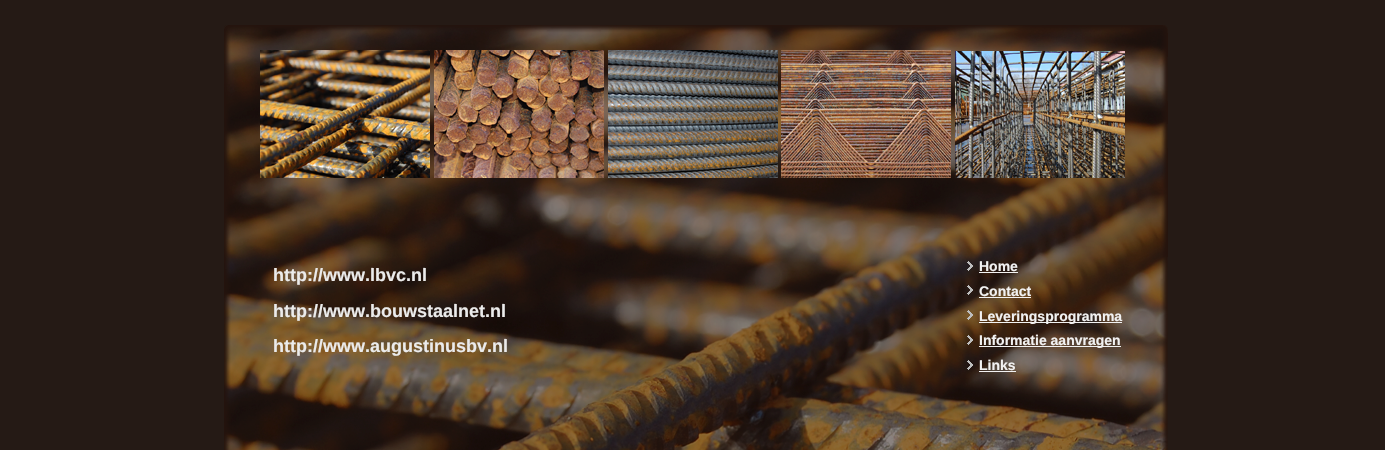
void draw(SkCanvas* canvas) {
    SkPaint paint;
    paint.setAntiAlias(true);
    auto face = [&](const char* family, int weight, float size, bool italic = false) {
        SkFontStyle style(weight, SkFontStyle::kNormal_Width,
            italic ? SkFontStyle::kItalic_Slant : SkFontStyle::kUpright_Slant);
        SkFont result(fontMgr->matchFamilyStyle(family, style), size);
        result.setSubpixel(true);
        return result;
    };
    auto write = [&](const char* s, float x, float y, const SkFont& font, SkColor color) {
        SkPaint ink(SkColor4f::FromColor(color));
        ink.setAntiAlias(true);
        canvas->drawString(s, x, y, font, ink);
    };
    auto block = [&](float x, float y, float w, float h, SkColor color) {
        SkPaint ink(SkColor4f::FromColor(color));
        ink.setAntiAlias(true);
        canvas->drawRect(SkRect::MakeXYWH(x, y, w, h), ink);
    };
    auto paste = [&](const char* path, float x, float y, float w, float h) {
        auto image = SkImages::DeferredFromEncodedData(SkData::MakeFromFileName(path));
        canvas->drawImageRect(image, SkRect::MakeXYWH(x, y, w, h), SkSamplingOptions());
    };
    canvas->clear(SkColorSetRGB(37, 26, 21));
    paste("pic1.png", 224, 25, 944, 425);
    paste("pic2.png", 260, 50, 170, 128);
    paste("pic3.png", 434, 50, 170, 128);
    paste("pic4.png", 608, 50, 170, 128);
    paste("pic5.png", 781, 50, 170, 128);
    paste("pic6.png", 955, 51, 170, 127);
    auto kFont1 = face("Liberation Sans", 700, 18);
    write("http://www.lbvc.nl", 273, 281, kFont1, SkColorSetRGB(235, 235, 235));
    write("http://www.bouwstaalnet.nl", 273, 317, kFont1, SkColorSetRGB(235, 235, 235));
    write("http://www.augustinusbv.nl", 273, 352, kFont1, SkColorSetRGB(235, 235, 235));
    paste("pic7.png", 967, 261, 6, 10);
    auto kFont2 = face("Liberation Sans", 700, 14);
    write("Home", 979, 271, kFont2, SkColorSetRGB(242, 242, 242));
    block(979, 272, 39, 1, SkColorSetRGB(242, 242, 242));
    paste("pic8.png", 967, 285, 6, 10);
    write("Contact", 979, 296, kFont2, SkColorSetRGB(242, 242, 242));
    block(979, 297, 52, 1, SkColorSetRGB(242, 242, 242));
    paste("pic9.png", 967, 310, 6, 10);
    block(979, 322, 143, 1, SkColorSetRGB(242, 242, 242));
    write("Leveringsprogramma", 979, 321, kFont2, SkColorSetRGB(242, 242, 242));
    paste("pic10.png", 967, 335, 6, 10);
    block(979, 346, 142, 1, SkColorSetRGB(242, 242, 242));
    write("Informatie aanvragen", 979, 345, kFont2, SkColorSetRGB(242, 242, 242));
    paste("pic11.png", 967, 360, 6, 10);
    write("Links", 979, 370, kFont2, SkColorSetRGB(242, 242, 242));
    block(979, 371, 37, 1, SkColorSetRGB(242, 242, 242));
}
